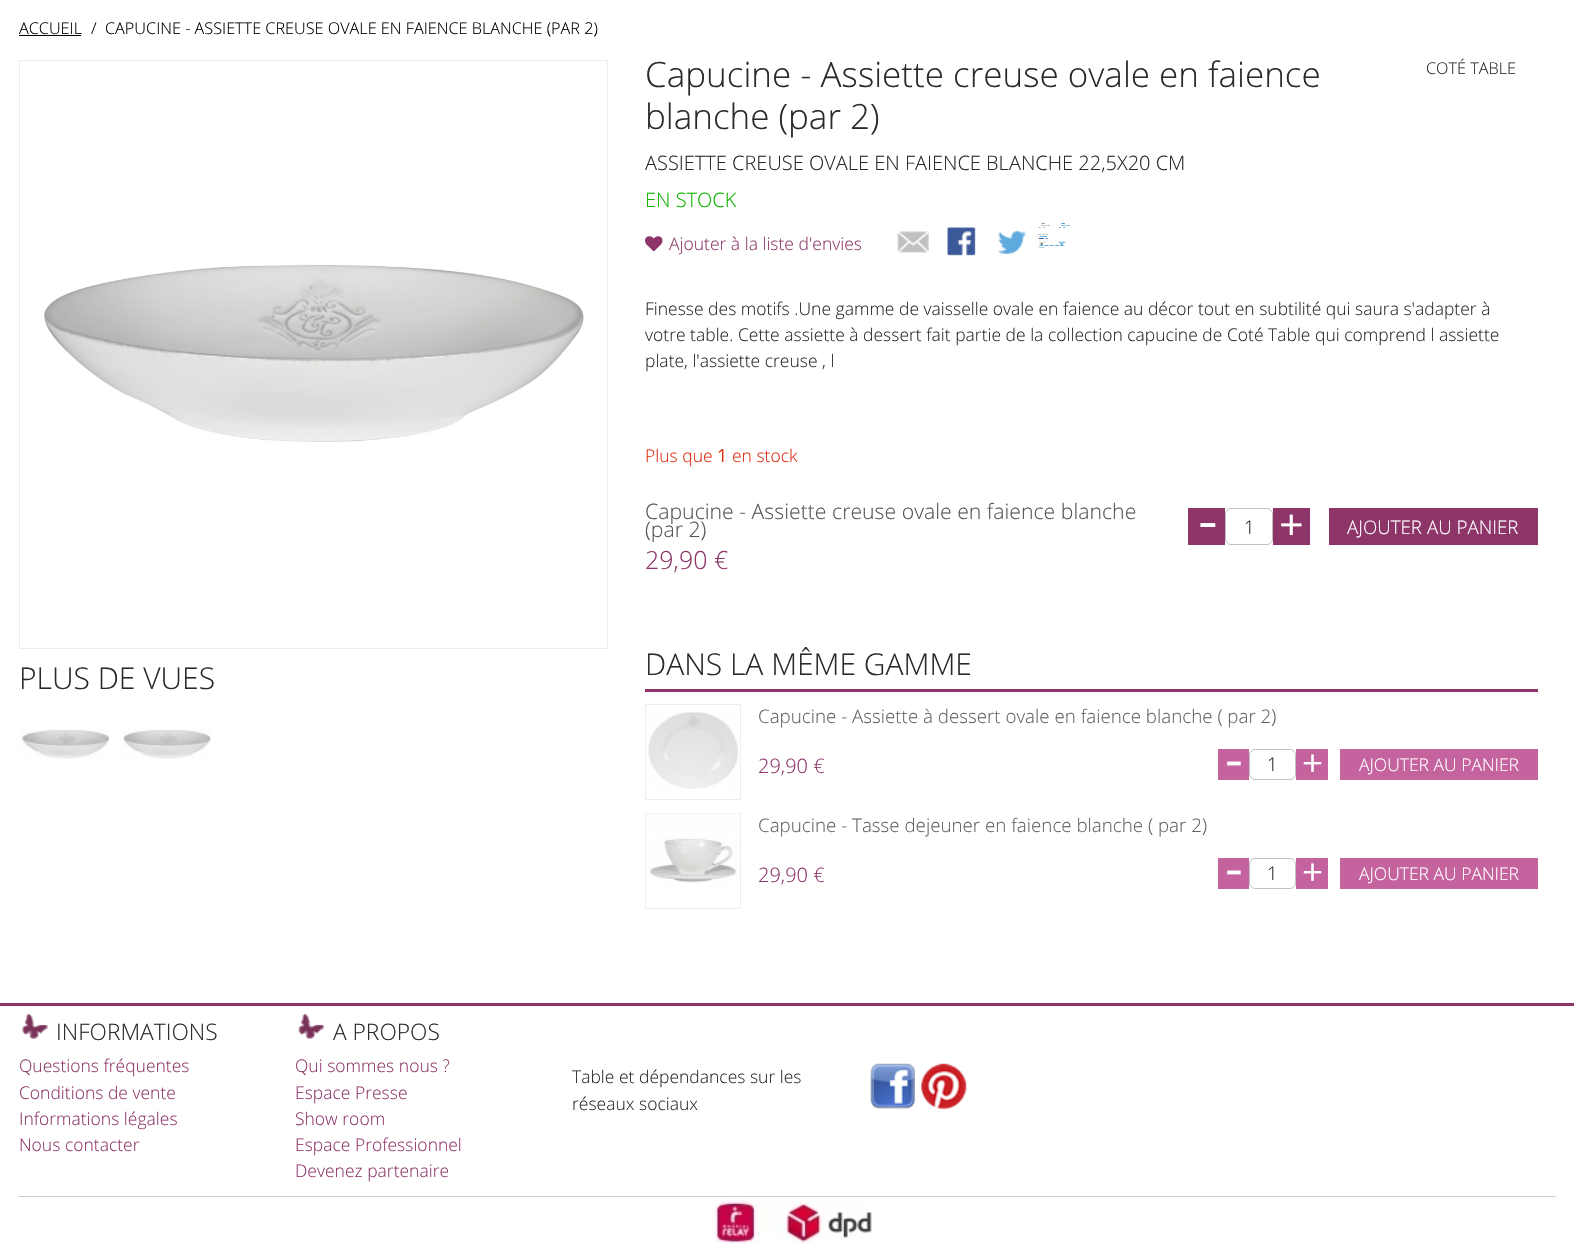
void draw(SkCanvas* canvas) {
    SkPaint paint;
    paint.setAntiAlias(true);
    auto face = [&](const char* family, int weight, float size, bool italic = false) {
        SkFontStyle style(weight, SkFontStyle::kNormal_Width,
            italic ? SkFontStyle::kItalic_Slant : SkFontStyle::kUpright_Slant);
        SkFont result(fontMgr->matchFamilyStyle(family, style), size);
        result.setSubpixel(true);
        return result;
    };
    auto write = [&](const char* s, float x, float y, const SkFont& font, SkColor color) {
        SkPaint ink(SkColor4f::FromColor(color));
        ink.setAntiAlias(true);
        canvas->drawString(s, x, y, font, ink);
    };
    auto block = [&](float x, float y, float w, float h, SkColor color) {
        SkPaint ink(SkColor4f::FromColor(color));
        ink.setAntiAlias(true);
        canvas->drawRect(SkRect::MakeXYWH(x, y, w, h), ink);
    };
    auto paste = [&](const char* path, float x, float y, float w, float h) {
        auto image = SkImages::DeferredFromEncodedData(SkData::MakeFromFileName(path));
        canvas->drawImageRect(image, SkRect::MakeXYWH(x, y, w, h), SkSamplingOptions());
    };
    canvas->clear(SK_ColorWHITE);
    auto kFont1 = face("Open Sans", 300, 16.25f);
    write("ACCUEIL", 19, 34, kFont1, SK_ColorBLACK);
    block(19, 35, 62, 1, SK_ColorBLACK);
    write("/", 91, 34, kFont1, SK_ColorBLACK);
    write("CAPUCINE - ASSIETTE CREUSE OVALE EN FAIENCE BLANCHE (PAR 2)", 105, 34, kFont1, SK_ColorBLACK);
    auto kFont2 = face("Open Sans", 300, 35);
    write("Capucine - Assiette creuse ovale en faience", 645, 87, kFont2, SkColorSetRGB(42, 42, 42));
    write("blanche (par 2)", 645, 129, kFont2, SkColorSetRGB(42, 42, 42));
    auto kFont3 = face("Open Sans", 300, 20);
    write("ASSIETTE CREUSE OVALE EN FAIENCE BLANCHE 22,5X20 CM", 645, 170, kFont3, SkColorSetRGB(42, 42, 42));
    write("COTÉ TABLE", 1426, 74, kFont1, SkColorSetRGB(42, 42, 42));
    write("EN STOCK", 645, 207, kFont3, SkColorSetRGB(17, 180, 0));
    paste("pic1.png", 645, 236, 18, 16);
    auto kFont4 = face("Open Sans", 300, 17.5f);
    write("Ajouter à la liste d'envies", 669, 250, kFont4, SkColorSetRGB(141, 53, 105));
    paste("pic2.png", 897, 231, 32, 22);
    paste("pic3.png", 947, 227, 29, 29);
    paste("pic4.png", 997, 230, 30, 25);
    paste("pic5.png", 1038, 223, 32, 25);
    write("Finesse des motifs .Une gamme de vaisselle ovale en faience au décor tout en subtilité qui saura s'adapter à", 645, 315, kFont4, SkColorSetRGB(42, 42, 42));
    write("votre table. Cette assiette à dessert fait partie de la collection capucine de Coté Table qui comprend l assiette", 645, 341, kFont4, SkColorSetRGB(42, 42, 42));
    write("plate, l'assiette creuse , l", 645, 367, kFont4, SkColorSetRGB(42, 42, 42));
    write("Plus que", 645, 462, kFont4, SkColorSetRGB(223, 40, 10));
    auto kFont5 = face("Open Sans", 700, 17.5f);
    write("1", 717, 462, kFont5, SkColorSetRGB(223, 40, 10));
    write("en stock", 732, 462, kFont4, SkColorSetRGB(223, 40, 10));
    auto kFont6 = face("Open Sans", 300, 21.25f);
    write("Capucine - Assiette creuse ovale en faience blanche", 645, 519, kFont6, SkColorSetRGB(85, 85, 85));
    write("(par 2)", 645, 537, kFont6, SkColorSetRGB(85, 85, 85));
    block(1188, 508, 37, 37, SkColorSetRGB(141, 53, 105));
    auto kFont7 = face("Open Sans", 700, 56);
    write("-", 1198, 541, kFont7, SK_ColorWHITE);
    paint.setStyle(SkPaint::kStroke_Style);
    paint.setStrokeWidth(1);
    paint.setColor(SkColorSetRGB(192, 192, 192));
    canvas->drawRoundRect(SkRect::MakeXYWH(1225.5f, 508.5f, 47, 36), 5.5f, 5.5f, paint);
    auto kFont8 = face("Open Sans", 300, 18.75f);
    write("1", 1244, 534, kFont8, SkColorSetRGB(42, 42, 42));
    block(1273, 508, 37, 37, SkColorSetRGB(141, 53, 105));
    auto kFont9 = face("Open Sans", 700, 41);
    write("+", 1279, 540, kFont9, SK_ColorWHITE);
    block(1329, 508, 209, 37, SkColorSetRGB(141, 53, 105));
    write("AJOUTER AU PANIER", 1347, 534, kFont8, SK_ColorWHITE);
    auto kFont10 = face("Open Sans", 300, 25);
    write("29,90 €", 645, 569, kFont10, SkColorSetRGB(141, 53, 105));
    paint.setColor(SkColorSetRGB(237, 237, 237));
    canvas->drawRect(SkRect::MakeXYWH(19.5f, 60.5f, 588, 588), paint);
    paste("pic6.png", 44, 264, 540, 178);
    auto kFont11 = face("Open Sans", 300, 30);
    write("PLUS DE VUES", 19, 689, kFont11, SkColorSetRGB(42, 42, 42));
    paste("pic7.png", 19, 729, 90, 30);
    paste("pic8.png", 120, 729, 91, 30);
    block(645, 689, 893, 3, SkColorSetRGB(141, 53, 105));
    write("DANS LA MÊME GAMME", 645, 675, kFont11, SkColorSetRGB(42, 42, 42));
    canvas->drawRect(SkRect::MakeXYWH(645.5f, 704.5f, 95, 95), paint);
    paste("pic9.png", 648, 712, 91, 77);
    write("Capucine - Assiette à dessert ovale en faience blanche ( par 2)", 758, 723, kFont8, SkColorSetRGB(99, 99, 99));
    write("29,90 €", 758, 773, kFont3, SkColorSetRGB(141, 53, 105));
    block(1218, 749, 31, 31, SkColorSetRGB(197, 99, 159));
    auto kFont12 = face("Open Sans", 700, 51);
    write("-", 1225, 778, kFont12, SK_ColorWHITE);
    paint.setColor(SkColorSetRGB(192, 192, 192));
    canvas->drawRoundRect(SkRect::MakeXYWH(1249.5f, 749.5f, 46, 30), 5.5f, 5.5f, paint);
    write("1", 1267, 771, kFont8, SkColorSetRGB(42, 42, 42));
    block(1296, 749, 32, 31, SkColorSetRGB(197, 99, 159));
    auto kFont13 = face("Open Sans", 700, 35);
    write("+", 1302, 776, kFont13, SK_ColorWHITE);
    block(1340, 749, 198, 31, SkColorSetRGB(197, 99, 159));
    write("AJOUTER AU PANIER", 1359, 771, kFont4, SK_ColorWHITE);
    paint.setColor(SkColorSetRGB(237, 237, 237));
    canvas->drawRect(SkRect::MakeXYWH(645.5f, 813.5f, 95, 95), paint);
    paste("pic10.png", 647, 813, 93, 70);
    write("Capucine - Tasse dejeuner en faience blanche ( par 2)", 758, 832, kFont8, SkColorSetRGB(99, 99, 99));
    write("29,90 €", 758, 882, kFont3, SkColorSetRGB(141, 53, 105));
    block(1218, 858, 31, 31, SkColorSetRGB(197, 99, 159));
    write("-", 1225, 887, kFont12, SK_ColorWHITE);
    paint.setColor(SkColorSetRGB(192, 192, 192));
    canvas->drawRoundRect(SkRect::MakeXYWH(1249.5f, 858.5f, 46, 30), 5.5f, 5.5f, paint);
    write("1", 1267, 880, kFont8, SkColorSetRGB(42, 42, 42));
    block(1296, 858, 32, 31, SkColorSetRGB(197, 99, 159));
    write("+", 1302, 885, kFont13, SK_ColorWHITE);
    block(1340, 858, 198, 31, SkColorSetRGB(197, 99, 159));
    write("AJOUTER AU PANIER", 1359, 880, kFont4, SK_ColorWHITE);
    block(0, 1003, 1574, 3, SkColorSetRGB(141, 53, 105));
    paste("pic11.png", 22, 1013, 26, 26);
    auto kFont14 = face("Open Sans", 300, 22.75f);
    write("INFORMATIONS", 56, 1040, kFont14, SkColorSetRGB(42, 42, 42));
    write("Questions fréquentes", 19, 1072, kFont4, SkColorSetRGB(141, 53, 105));
    write("Conditions de vente", 19, 1099, kFont4, SkColorSetRGB(141, 53, 105));
    write("Informations légales", 19, 1125, kFont4, SkColorSetRGB(141, 53, 105));
    write("Nous contacter", 19, 1151, kFont4, SkColorSetRGB(141, 53, 105));
    paste("pic12.png", 298, 1013, 26, 26);
    write("A PROPOS", 333, 1040, kFont14, SkColorSetRGB(42, 42, 42));
    write("Qui sommes nous ?", 295, 1072, kFont4, SkColorSetRGB(141, 53, 105));
    write("Espace Presse", 295, 1099, kFont4, SkColorSetRGB(141, 53, 105));
    write("Show room", 295, 1125, kFont4, SkColorSetRGB(141, 53, 105));
    write("Espace Professionnel", 295, 1151, kFont4, SkColorSetRGB(141, 53, 105));
    write("Devenez partenaire", 295, 1177, kFont4, SkColorSetRGB(141, 53, 105));
    write("Table et dépendances sur les", 572, 1083, kFont4, SkColorSetRGB(42, 42, 42));
    write("réseaux sociaux", 572, 1110, kFont4, SkColorSetRGB(42, 42, 42));
    paste("pic13.png", 870, 1063, 45, 46);
    paste("pic14.png", 921, 1063, 46, 46);
    block(19, 1196, 1537, 1, SkColorSetRGB(204, 204, 204));
    paste("pic15.png", 713, 1197, 160, 46);
}
